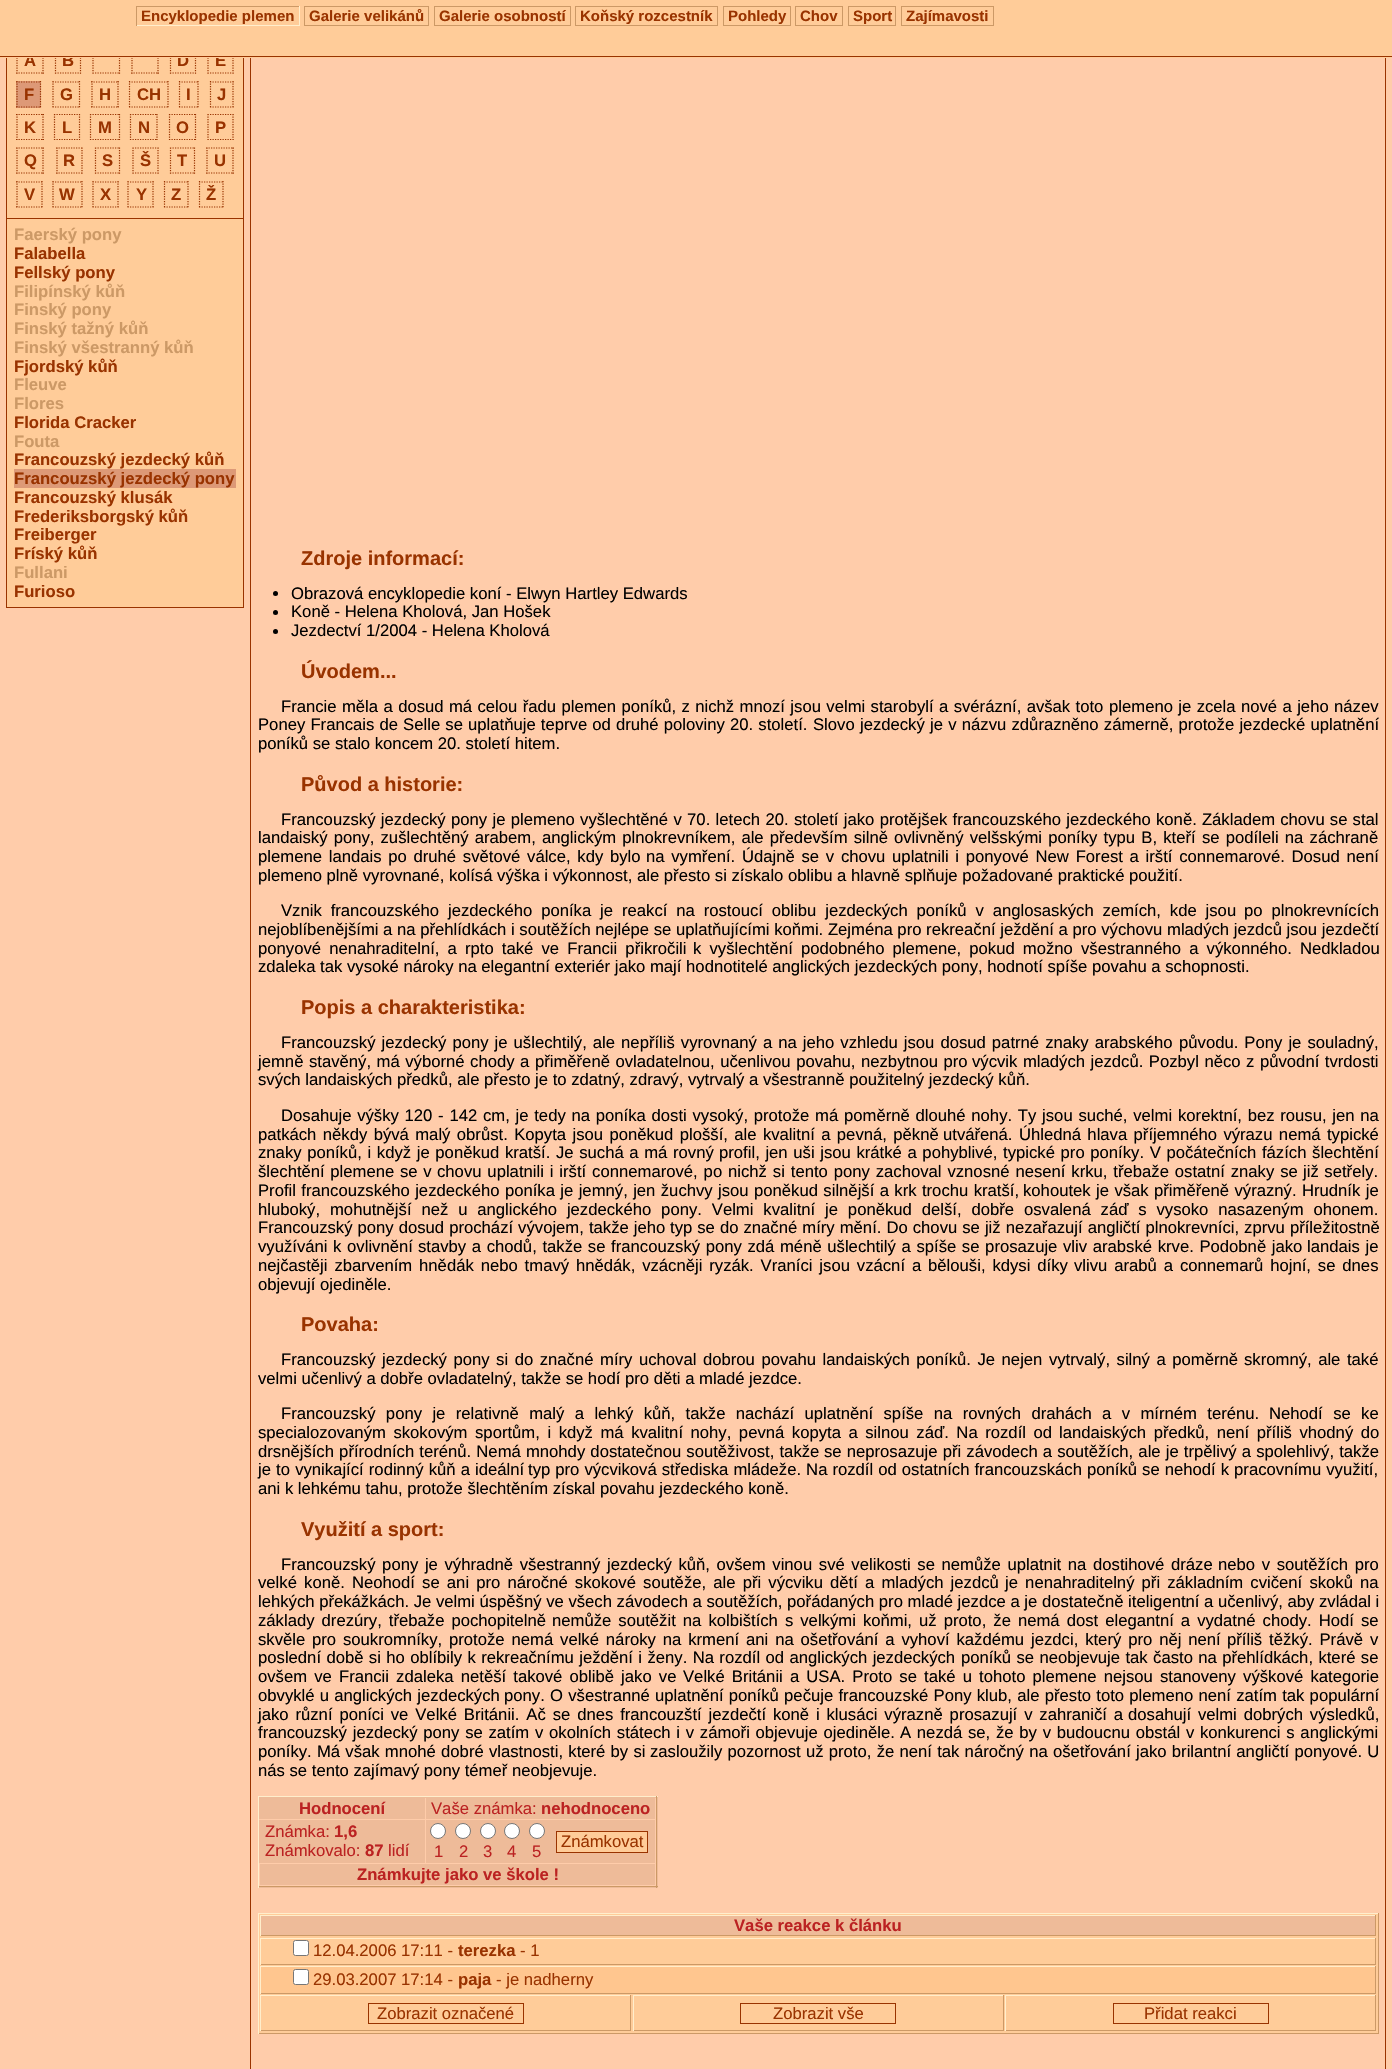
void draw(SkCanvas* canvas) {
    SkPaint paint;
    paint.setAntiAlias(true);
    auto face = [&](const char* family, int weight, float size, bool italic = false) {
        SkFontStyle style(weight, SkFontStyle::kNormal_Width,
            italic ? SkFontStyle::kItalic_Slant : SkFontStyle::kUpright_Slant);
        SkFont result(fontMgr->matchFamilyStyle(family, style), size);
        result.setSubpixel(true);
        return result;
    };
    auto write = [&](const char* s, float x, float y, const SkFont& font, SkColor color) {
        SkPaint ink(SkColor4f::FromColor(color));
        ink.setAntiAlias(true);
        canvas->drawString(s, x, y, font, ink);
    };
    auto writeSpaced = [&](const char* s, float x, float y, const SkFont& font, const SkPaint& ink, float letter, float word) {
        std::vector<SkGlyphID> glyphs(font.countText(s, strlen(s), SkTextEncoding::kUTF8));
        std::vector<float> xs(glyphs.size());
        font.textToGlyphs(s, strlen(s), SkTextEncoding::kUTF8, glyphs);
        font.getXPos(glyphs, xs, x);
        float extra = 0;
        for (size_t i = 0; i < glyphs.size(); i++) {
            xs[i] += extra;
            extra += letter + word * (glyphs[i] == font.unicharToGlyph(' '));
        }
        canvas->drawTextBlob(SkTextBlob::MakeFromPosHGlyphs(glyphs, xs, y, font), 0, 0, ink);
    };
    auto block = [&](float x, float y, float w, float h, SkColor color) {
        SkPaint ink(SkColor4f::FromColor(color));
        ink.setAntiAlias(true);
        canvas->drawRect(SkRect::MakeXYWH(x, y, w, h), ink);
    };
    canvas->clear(SkColorSetRGB(255, 204, 170));
    block(7, 58, 236, 160, SkColorSetRGB(255, 204, 153));
    paint.setStyle(SkPaint::kStroke_Style);
    paint.setStrokeWidth(1.2f);
    paint.setColor(SkColorSetRGB(153, 51, 0));
    paint.setPathEffect(SkDashPathEffect::Make({{1.25f, 1.25f}}, 0));
    canvas->drawPath(SkPathBuilder().moveTo(43, 47.5f).lineTo(43, 74).moveTo(16, 73).lineTo(44, 73).moveTo(17, 47.5f).lineTo(17, 74).detach(), paint);
    paint.setPathEffect(nullptr);
    auto kFont1 = face("Liberation Sans", 700, 16.67f);
    write("A", 24, 66, kFont1, SkColorSetRGB(153, 51, 0));
    paint.setPathEffect(SkDashPathEffect::Make({{1.25f, 1.25f}}, 0));
    canvas->drawPath(SkPathBuilder().moveTo(80.5f, 47.5f).lineTo(80.5f, 74).moveTo(55, 73).lineTo(81, 73).moveTo(55.5f, 47.5f).lineTo(55.5f, 74).detach(), paint);
    paint.setPathEffect(nullptr);
    write("B", 62, 66, kFont1, SkColorSetRGB(153, 51, 0));
    paint.setPathEffect(SkDashPathEffect::Make({{1.25f, 1.25f}}, 0));
    canvas->drawPath(SkPathBuilder().moveTo(119.5f, 47.5f).lineTo(119.5f, 74).moveTo(92.5f, 73).lineTo(120, 73).moveTo(93, 47.5f).lineTo(93, 74).detach(), paint);
    paint.setPathEffect(nullptr);
    paint.setPathEffect(SkDashPathEffect::Make({{1.25f, 1.25f}}, 0));
    canvas->drawPath(SkPathBuilder().moveTo(158, 47.5f).lineTo(158, 74).moveTo(131, 73).lineTo(159, 73).moveTo(132, 47.5f).lineTo(132, 74).detach(), paint);
    paint.setPathEffect(nullptr);
    paint.setPathEffect(SkDashPathEffect::Make({{1.25f, 1.25f}}, 0));
    canvas->drawPath(SkPathBuilder().moveTo(195.5f, 47.5f).lineTo(195.5f, 74).moveTo(170, 73).lineTo(196, 73).moveTo(170.5f, 47.5f).lineTo(170.5f, 74).detach(), paint);
    paint.setPathEffect(nullptr);
    write("D", 177, 66, kFont1, SkColorSetRGB(153, 51, 0));
    paint.setPathEffect(SkDashPathEffect::Make({{1.25f, 1.25f}}, 0));
    canvas->drawPath(SkPathBuilder().moveTo(233, 47.5f).lineTo(233, 74).moveTo(207.5f, 73).lineTo(234, 73).moveTo(208, 47.5f).lineTo(208, 74).detach(), paint);
    paint.setPathEffect(nullptr);
    write("E", 215, 66, kFont1, SkColorSetRGB(153, 51, 0));
    paint.setStrokeWidth(1);
    canvas->drawRect(SkRect::MakeXYWH(250.5f, 14.5f, 1135, 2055), paint);
    block(0, 0, 1392, 58, SkColorSetRGB(255, 204, 153));
    block(0, 56, 1392, 1, SkColorSetRGB(153, 51, 0));
    auto kFont2 = face("Liberation Sans", 700, 15);
    write("Encyklopedie plemen", 141, 21, kFont2, SkColorSetRGB(153, 51, 0));
    block(136, 6, 164, 1, SkColorSetRGB(204, 153, 102));
    block(299, 6, 1, 20, SkColorSetRGB(255, 238, 204));
    block(136, 25, 164, 1, SkColorSetRGB(255, 238, 204));
    block(136, 6, 1, 20, SkColorSetRGB(204, 153, 102));
    paint.setColor(SkColorSetRGB(204, 153, 102));
    canvas->drawRect(SkRect::MakeXYWH(304.5f, 6.5f, 124, 19), paint);
    write("Galerie velikánů", 309, 21, kFont2, SkColorSetRGB(153, 51, 0));
    canvas->drawRect(SkRect::MakeXYWH(434.5f, 6.5f, 136, 19), paint);
    write("Galerie osobností", 439, 21, kFont2, SkColorSetRGB(153, 51, 0));
    canvas->drawRect(SkRect::MakeXYWH(575.5f, 6.5f, 142, 19), paint);
    write("Koňský rozcestník", 580, 21, kFont2, SkColorSetRGB(153, 51, 0));
    canvas->drawRect(SkRect::MakeXYWH(723.5f, 6.5f, 67, 19), paint);
    write("Pohledy", 728, 21, kFont2, SkColorSetRGB(153, 51, 0));
    canvas->drawRect(SkRect::MakeXYWH(795.5f, 6.5f, 47, 19), paint);
    write("Chov", 800, 21, kFont2, SkColorSetRGB(153, 51, 0));
    canvas->drawRect(SkRect::MakeXYWH(848.5f, 6.5f, 47, 19), paint);
    write("Sport", 853, 21, kFont2, SkColorSetRGB(153, 51, 0));
    canvas->drawRect(SkRect::MakeXYWH(901.5f, 6.5f, 92, 19), paint);
    write("Zajímavosti", 906, 21, kFont2, SkColorSetRGB(153, 51, 0));
    block(243, 58, 1, 160, SkColorSetRGB(153, 51, 0));
    block(6, 58, 1, 160, SkColorSetRGB(153, 51, 0));
    block(16, 81, 25, 27, SkColorSetRGB(221, 153, 119));
    paint.setStrokeWidth(1.2f);
    paint.setColor(SkColorSetRGB(153, 51, 0));
    paint.setPathEffect(SkDashPathEffect::Make({{1.25f, 1.25f}}, 0));
    canvas->drawPath(SkPathBuilder().moveTo(16, 82).lineTo(41, 82).moveTo(40.5f, 81).lineTo(40.5f, 107.5f).moveTo(16, 107).lineTo(41, 107).moveTo(17, 81).lineTo(17, 107.5f).detach(), paint);
    paint.setPathEffect(nullptr);
    write("F", 24, 100, kFont1, SkColorSetRGB(153, 51, 0));
    paint.setPathEffect(SkDashPathEffect::Make({{1.25f, 1.25f}}, 0));
    canvas->drawPath(SkPathBuilder().moveTo(52.5f, 82).lineTo(80, 82).moveTo(79.5f, 81).lineTo(79.5f, 107.5f).moveTo(52.5f, 107).lineTo(80, 107).moveTo(53, 81).lineTo(53, 107.5f).detach(), paint);
    paint.setPathEffect(nullptr);
    write("G", 60, 100, kFont1, SkColorSetRGB(153, 51, 0));
    paint.setPathEffect(SkDashPathEffect::Make({{1.25f, 1.25f}}, 0));
    canvas->drawPath(SkPathBuilder().moveTo(91, 82).lineTo(119, 82).moveTo(118, 81).lineTo(118, 107.5f).moveTo(91, 107).lineTo(119, 107).moveTo(92, 81).lineTo(92, 107.5f).detach(), paint);
    paint.setPathEffect(nullptr);
    write("H", 99, 100, kFont1, SkColorSetRGB(153, 51, 0));
    paint.setPathEffect(SkDashPathEffect::Make({{1.25f, 1.25f}}, 0));
    canvas->drawPath(SkPathBuilder().moveTo(129, 82).lineTo(169, 82).moveTo(168, 81).lineTo(168, 107.5f).moveTo(129, 107).lineTo(169, 107).moveTo(129.5f, 81).lineTo(129.5f, 107.5f).detach(), paint);
    paint.setPathEffect(nullptr);
    write("CH", 137, 100, kFont1, SkColorSetRGB(153, 51, 0));
    paint.setPathEffect(SkDashPathEffect::Make({{1.25f, 1.25f}}, 0));
    canvas->drawPath(SkPathBuilder().moveTo(179, 82).lineTo(199, 82).moveTo(198, 81).lineTo(198, 107.5f).moveTo(179, 107).lineTo(199, 107).moveTo(179.5f, 81).lineTo(179.5f, 107.5f).detach(), paint);
    paint.setPathEffect(nullptr);
    write("I", 186, 100, kFont1, SkColorSetRGB(153, 51, 0));
    paint.setPathEffect(SkDashPathEffect::Make({{1.25f, 1.25f}}, 0));
    canvas->drawPath(SkPathBuilder().moveTo(210, 82).lineTo(234, 82).moveTo(233, 81).lineTo(233, 107.5f).moveTo(210, 107).lineTo(234, 107).moveTo(210.5f, 81).lineTo(210.5f, 107.5f).detach(), paint);
    paint.setPathEffect(nullptr);
    write("J", 217, 100, kFont1, SkColorSetRGB(153, 51, 0));
    paint.setPathEffect(SkDashPathEffect::Make({{1.25f, 1.25f}}, 0));
    canvas->drawPath(SkPathBuilder().moveTo(16, 114.5f).lineTo(44, 114.5f).moveTo(43, 114).lineTo(43, 140).moveTo(16, 139.5f).lineTo(44, 139.5f).moveTo(17, 114).lineTo(17, 140).detach(), paint);
    paint.setPathEffect(nullptr);
    write("K", 24, 133, kFont1, SkColorSetRGB(153, 51, 0));
    paint.setPathEffect(SkDashPathEffect::Make({{1.25f, 1.25f}}, 0));
    canvas->drawPath(SkPathBuilder().moveTo(54, 114.5f).lineTo(80, 114.5f).moveTo(79.5f, 114).lineTo(79.5f, 140).moveTo(54, 139.5f).lineTo(80, 139.5f).moveTo(54.5f, 114).lineTo(54.5f, 140).detach(), paint);
    paint.setPathEffect(nullptr);
    write("L", 62, 133, kFont1, SkColorSetRGB(153, 51, 0));
    paint.setPathEffect(SkDashPathEffect::Make({{1.25f, 1.25f}}, 0));
    canvas->drawPath(SkPathBuilder().moveTo(90, 114.5f).lineTo(120, 114.5f).moveTo(119.5f, 114).lineTo(119.5f, 140).moveTo(90, 139.5f).lineTo(120, 139.5f).moveTo(90.5f, 114).lineTo(90.5f, 140).detach(), paint);
    paint.setPathEffect(nullptr);
    write("M", 98, 133, kFont1, SkColorSetRGB(153, 51, 0));
    paint.setPathEffect(SkDashPathEffect::Make({{1.25f, 1.25f}}, 0));
    canvas->drawPath(SkPathBuilder().moveTo(130, 114.5f).lineTo(157.5f, 114.5f).moveTo(157, 114).lineTo(157, 140).moveTo(130, 139.5f).lineTo(157.5f, 139.5f).moveTo(130.5f, 114).lineTo(130.5f, 140).detach(), paint);
    paint.setPathEffect(nullptr);
    write("N", 138, 133, kFont1, SkColorSetRGB(153, 51, 0));
    paint.setPathEffect(SkDashPathEffect::Make({{1.25f, 1.25f}}, 0));
    canvas->drawPath(SkPathBuilder().moveTo(169, 114.5f).lineTo(196, 114.5f).moveTo(195.5f, 114).lineTo(195.5f, 140).moveTo(169, 139.5f).lineTo(196, 139.5f).moveTo(169.5f, 114).lineTo(169.5f, 140).detach(), paint);
    paint.setPathEffect(nullptr);
    write("O", 176, 133, kFont1, SkColorSetRGB(153, 51, 0));
    paint.setPathEffect(SkDashPathEffect::Make({{1.25f, 1.25f}}, 0));
    canvas->drawPath(SkPathBuilder().moveTo(207.5f, 114.5f).lineTo(234, 114.5f).moveTo(233, 114).lineTo(233, 140).moveTo(207.5f, 139.5f).lineTo(234, 139.5f).moveTo(208, 114).lineTo(208, 140).detach(), paint);
    paint.setPathEffect(nullptr);
    write("P", 215, 133, kFont1, SkColorSetRGB(153, 51, 0));
    paint.setPathEffect(SkDashPathEffect::Make({{1.25f, 1.25f}}, 0));
    canvas->drawPath(SkPathBuilder().moveTo(16, 148).lineTo(44, 148).moveTo(43, 147.5f).lineTo(43, 174).moveTo(16, 173).lineTo(44, 173).moveTo(17, 147.5f).lineTo(17, 174).detach(), paint);
    paint.setPathEffect(nullptr);
    write("Q", 24, 166, kFont1, SkColorSetRGB(153, 51, 0));
    paint.setPathEffect(SkDashPathEffect::Make({{1.25f, 1.25f}}, 0));
    canvas->drawPath(SkPathBuilder().moveTo(56, 148).lineTo(82.5f, 148).moveTo(82, 147.5f).lineTo(82, 174).moveTo(56, 173).lineTo(82.5f, 173).moveTo(57, 147.5f).lineTo(57, 174).detach(), paint);
    paint.setPathEffect(nullptr);
    write("R", 63, 166, kFont1, SkColorSetRGB(153, 51, 0));
    paint.setPathEffect(SkDashPathEffect::Make({{1.25f, 1.25f}}, 0));
    canvas->drawPath(SkPathBuilder().moveTo(95, 148).lineTo(120, 148).moveTo(119.5f, 147.5f).lineTo(119.5f, 174).moveTo(95, 173).lineTo(120, 173).moveTo(95.5f, 147.5f).lineTo(95.5f, 174).detach(), paint);
    paint.setPathEffect(nullptr);
    write("S", 102, 166, kFont1, SkColorSetRGB(153, 51, 0));
    paint.setPathEffect(SkDashPathEffect::Make({{1.25f, 1.25f}}, 0));
    canvas->drawPath(SkPathBuilder().moveTo(132.5f, 148).lineTo(159, 148).moveTo(158, 147.5f).lineTo(158, 174).moveTo(132.5f, 173).lineTo(159, 173).moveTo(133, 147.5f).lineTo(133, 174).detach(), paint);
    paint.setPathEffect(nullptr);
    write("Š", 140, 166, kFont1, SkColorSetRGB(153, 51, 0));
    paint.setPathEffect(SkDashPathEffect::Make({{1.25f, 1.25f}}, 0));
    canvas->drawPath(SkPathBuilder().moveTo(170, 148).lineTo(195, 148).moveTo(194.5f, 147.5f).lineTo(194.5f, 174).moveTo(170, 173).lineTo(195, 173).moveTo(170.5f, 147.5f).lineTo(170.5f, 174).detach(), paint);
    paint.setPathEffect(nullptr);
    write("T", 177, 166, kFont1, SkColorSetRGB(153, 51, 0));
    paint.setPathEffect(SkDashPathEffect::Make({{1.25f, 1.25f}}, 0));
    canvas->drawPath(SkPathBuilder().moveTo(206, 148).lineTo(234, 148).moveTo(233, 147.5f).lineTo(233, 174).moveTo(206, 173).lineTo(234, 173).moveTo(207, 147.5f).lineTo(207, 174).detach(), paint);
    paint.setPathEffect(nullptr);
    write("U", 214, 166, kFont1, SkColorSetRGB(153, 51, 0));
    paint.setPathEffect(SkDashPathEffect::Make({{1.25f, 1.25f}}, 0));
    canvas->drawPath(SkPathBuilder().moveTo(16, 182).lineTo(42.5f, 182).moveTo(42, 181).lineTo(42, 207.5f).moveTo(16, 207).lineTo(42.5f, 207).moveTo(17, 181).lineTo(17, 207.5f).detach(), paint);
    paint.setPathEffect(nullptr);
    write("V", 24, 200, kFont1, SkColorSetRGB(153, 51, 0));
    paint.setPathEffect(SkDashPathEffect::Make({{1.25f, 1.25f}}, 0));
    canvas->drawPath(SkPathBuilder().moveTo(52.5f, 182).lineTo(82.5f, 182).moveTo(82, 181).lineTo(82, 207.5f).moveTo(52.5f, 207).lineTo(82.5f, 207).moveTo(53, 181).lineTo(53, 207.5f).detach(), paint);
    paint.setPathEffect(nullptr);
    write("W", 59, 200, kFont1, SkColorSetRGB(153, 51, 0));
    paint.setPathEffect(SkDashPathEffect::Make({{1.25f, 1.25f}}, 0));
    canvas->drawPath(SkPathBuilder().moveTo(92.5f, 182).lineTo(119, 182).moveTo(118, 181).lineTo(118, 207.5f).moveTo(92.5f, 207).lineTo(119, 207).moveTo(93, 181).lineTo(93, 207.5f).detach(), paint);
    paint.setPathEffect(nullptr);
    write("X", 100, 200, kFont1, SkColorSetRGB(153, 51, 0));
    paint.setPathEffect(SkDashPathEffect::Make({{1.25f, 1.25f}}, 0));
    canvas->drawPath(SkPathBuilder().moveTo(127.5f, 182).lineTo(154, 182).moveTo(153, 181).lineTo(153, 207.5f).moveTo(127.5f, 207).lineTo(154, 207).moveTo(128, 181).lineTo(128, 207.5f).detach(), paint);
    paint.setPathEffect(nullptr);
    write("Y", 136, 200, kFont1, SkColorSetRGB(153, 51, 0));
    paint.setPathEffect(SkDashPathEffect::Make({{1.25f, 1.25f}}, 0));
    canvas->drawPath(SkPathBuilder().moveTo(164, 182).lineTo(189, 182).moveTo(188, 181).lineTo(188, 207.5f).moveTo(164, 207).lineTo(189, 207).moveTo(164.5f, 181).lineTo(164.5f, 207.5f).detach(), paint);
    paint.setPathEffect(nullptr);
    write("Z", 171, 200, kFont1, SkColorSetRGB(153, 51, 0));
    paint.setPathEffect(SkDashPathEffect::Make({{1.25f, 1.25f}}, 0));
    canvas->drawPath(SkPathBuilder().moveTo(199, 182).lineTo(224, 182).moveTo(223, 181).lineTo(223, 207.5f).moveTo(199, 207).lineTo(224, 207).moveTo(199.5f, 181).lineTo(199.5f, 207.5f).detach(), paint);
    paint.setPathEffect(nullptr);
    write("Ž", 206, 200, kFont1, SkColorSetRGB(153, 51, 0));
    paint.setStyle(SkPaint::kFill_Style);
    paint.setColor(SkColorSetRGB(255, 204, 153));
    canvas->drawRect(SkRect::MakeXYWH(6.5f, 218.5f, 237, 389), paint);
    paint.setStyle(SkPaint::kStroke_Style);
    paint.setStrokeWidth(1);
    paint.setColor(SkColorSetRGB(153, 51, 0));
    canvas->drawRect(SkRect::MakeXYWH(6.5f, 218.5f, 237, 389), paint);
    write("Faerský pony", 14, 240, kFont1, SkColorSetRGB(204, 153, 102));
    write("Falabella", 14, 259, kFont1, SkColorSetRGB(153, 51, 0));
    write("Fellský pony", 14, 278, kFont1, SkColorSetRGB(153, 51, 0));
    write("Filipínský kůň", 14, 297, kFont1, SkColorSetRGB(204, 153, 102));
    write("Finský pony", 14, 315, kFont1, SkColorSetRGB(204, 153, 102));
    write("Finský tažný kůň", 14, 334, kFont1, SkColorSetRGB(204, 153, 102));
    write("Finský všestranný kůň", 14, 353, kFont1, SkColorSetRGB(204, 153, 102));
    write("Fjordský kůň", 14, 372, kFont1, SkColorSetRGB(153, 51, 0));
    write("Fleuve", 14, 390, kFont1, SkColorSetRGB(204, 153, 102));
    write("Flores", 14, 409, kFont1, SkColorSetRGB(204, 153, 102));
    write("Florida Cracker", 14, 428, kFont1, SkColorSetRGB(153, 51, 0));
    write("Fouta", 14, 447, kFont1, SkColorSetRGB(204, 153, 102));
    write("Francouzský jezdecký kůň", 14, 465, kFont1, SkColorSetRGB(153, 51, 0));
    block(14, 469, 222, 19, SkColorSetRGB(221, 153, 119));
    write("Francouzský jezdecký pony", 14, 484, kFont1, SkColorSetRGB(153, 51, 0));
    write("Francouzský klusák", 14, 503, kFont1, SkColorSetRGB(153, 51, 0));
    write("Frederiksborgský kůň", 14, 522, kFont1, SkColorSetRGB(153, 51, 0));
    write("Freiberger", 14, 540, kFont1, SkColorSetRGB(153, 51, 0));
    write("Fríský kůň", 14, 559, kFont1, SkColorSetRGB(153, 51, 0));
    write("Fullani", 14, 578, kFont1, SkColorSetRGB(204, 153, 102));
    write("Furioso", 14, 597, kFont1, SkColorSetRGB(153, 51, 0));
    auto kFont3 = face("Liberation Sans", 700, 20);
    write("Zdroje informací:", 301, 565, kFont3, SkColorSetRGB(153, 51, 0));
    paint.setStyle(SkPaint::kFill_Style);
    paint.setColor(SK_ColorBLACK);
    canvas->drawCircle(275.5f, 593.5f, 2.5f, paint);
    auto kFont4 = face("Liberation Sans", 400, 16.67f);
    write("Obrazová encyklopedie koní - Elwyn Hartley Edwards", 291, 599, kFont4, SK_ColorBLACK);
    canvas->drawCircle(275.5f, 612.5f, 2.5f, paint);
    write("Koně - Helena Kholová, Jan Hošek", 291, 617, kFont4, SK_ColorBLACK);
    canvas->drawCircle(275.5f, 631.5f, 2.5f, paint);
    write("Jezdectví 1/2004 - Helena Kholová", 291, 636, kFont4, SK_ColorBLACK);
    write("Úvodem...", 301, 678, kFont3, SkColorSetRGB(153, 51, 0));
    writeSpaced("Francie měla a dosud má celou řadu plemen poníků, z nichž mnozí jsou velmi starobylí a svérázní, avšak toto", 281, 712, kFont4, paint, 0, 0.75f);
    writeSpaced("plemeno je zcela nové a jeho název", 1109, 712, kFont4, paint, 0, 0.75f);
    writeSpaced("Poney Francais de Selle se uplatňuje teprve od druhé poloviny 20. století.", 258, 730, kFont4, paint, 0, 0.5f);
    writeSpaced("Slovo jezdecký je v názvu zdůrazněno zámerně, protože jezdecké uplatnění", 813, 730, kFont4, paint, 0, 0.6f);
    write("poníků se stalo koncem 20. století hitem.", 258, 749, kFont4, SK_ColorBLACK);
    write("Původ a historie:", 301, 791, kFont3, SkColorSetRGB(153, 51, 0));
    writeSpaced("Francouzský jezdecký pony je plemeno vyšlechtěné v 70. letech 20. století jako protějšek francouzského jezdeckého", 281, 825, kFont4, paint, 0, 0.7f);
    writeSpaced("koně. Základem chovu se stal", 1156, 825, kFont4, paint, 0, 0.5f);
    writeSpaced("landaiský pony, zušlechtěný arabem, anglickým plnokrevníkem, ale především silně", 258, 843, kFont4, paint, 0, 1.5f);
    writeSpaced("ovlivněný velšskými poníky typu B, kteří se podíleli na záchraně", 894, 843, kFont4, paint, 0, 1.6f);
    writeSpaced("plemene landais po druhé světové válce, kdy bylo", 258, 862, kFont4, paint, 0, 2.1f);
    writeSpaced("na vymření. Údajně se v chovu uplatnili i ponyové New Forest a irští connemarové. Dosud není", 646, 862, kFont4, paint, 0, 2.1f);
    write("plemeno plně vyrovnané, kolísá výška i výkonnost, ale přesto si získalo oblibu a hlavně splňuje požadované praktické použití.", 258, 881, kFont4, SK_ColorBLACK);
    writeSpaced("Vznik francouzského jezdeckého poníka je reakcí na rostoucí oblibu jezdeckých poníků v anglosaských zemích, kde jsou", 281, 916, kFont4, paint, 0, 4.25f);
    writeSpaced("po plnokrevnících", 1244, 916, kFont4, paint, 0, 4.25f);
    write("nejoblíbenějšími a na přehlídkách i soutěžích nejlépe se uplatňujícími koňmi. Zejména pro rekreační ježdění a pro výchovu mladých jezdců jsou jezdečtí", 258, 935, kFont4, SK_ColorBLACK);
    writeSpaced("ponyové nenahraditelní, a rpto také ve Francii přikročili", 258, 954, kFont4, paint, 0, 3.5f);
    writeSpaced("k vyšlechtění podobného plemene, pokud možno všestranného a výkonného. Nedkladou", 693, 954, kFont4, paint, 0, 3.5f);
    write("zdaleka tak vysoké nároky na elegantní exteriér jako mají hodnotitelé anglických jezdeckých pony, hodnotí spíše povahu a schopnosti.", 258, 972, kFont4, SK_ColorBLACK);
    write("Popis a charakteristika:", 301, 1014, kFont3, SkColorSetRGB(153, 51, 0));
    writeSpaced("Francouzský jezdecký pony je ušlechtilý, ale nepříliš vyrovnaný a na jeho vzhledu jsou dosud patrné znaky arabského", 281, 1048, kFont4, paint, 0, 1.4f);
    writeSpaced("původu. Pony je souladný,", 1179, 1048, kFont4, paint, 0, 1.4f);
    writeSpaced("jemně stavěný, má výborné chody a přiměřeně ovladatelnou, učenlivou povahu, nezbytnou pro", 258, 1067, kFont4, paint, 0, 0.9f);
    writeSpaced("výcvik mladých jezdců. Pozbyl něco z původní tvrdosti", 972, 1067, kFont4, paint, 0, 0.9f);
    write("svých landaiských předků, ale přesto je to zdatný, zdravý, vytrvalý a všestranně použitelný jezdecký kůň.", 258, 1085, kFont4, SK_ColorBLACK);
    writeSpaced("Dosahuje výšky 120 - 142 cm, je tedy na poníka dosti vysoký, protože má poměrně dlouhé nohy. Ty jsou suché, velmi", 281, 1121, kFont4, paint, 0, 1.1f);
    writeSpaced("korektní, bez rousu, jen na", 1178, 1121, kFont4, paint, 0, 1.1f);
    writeSpaced("patkách někdy bývá malý obrůst. Kopyta jsou poněkud plošší, ale kvalitní a pevná, pěkně", 258, 1140, kFont4, paint, 0, 1.75f);
    writeSpaced("utvářená. Úhledná hlava příjemného výrazu nemá typické", 943, 1140, kFont4, paint, 0, 1.75f);
    writeSpaced("znaky poníků, i když je poněkud kratší. Je suchá a má rovný", 258, 1158, kFont4, paint, 0, 1);
    writeSpaced("profil, jen uši jsou krátké a pohyblivé, typické pro poníky. V počátečních fázích šlechtění", 719, 1158, kFont4, paint, 0, 1);
    writeSpaced("šlechtění plemene se v", 258, 1177, kFont4, paint, 0, 1);
    writeSpaced("chovu uplatnili i irští connemarové, po nichž si tento pony zachoval vznosné nesení krku, třebaže ostatní znaky se", 437, 1177, kFont4, paint, 0, 1.25f);
    writeSpaced("již setřely.", 1303, 1177, kFont4, paint, 0, 1);
    writeSpaced("Profil francouzského jezdeckého poníka je jemný, jen žuchvy jsou poněkud silnější a krk trochu kratší,", 258, 1196, kFont4, paint, 0, 0.75f);
    writeSpaced("kohoutek je však přiměřeně výrazný. Hrudník je", 1023, 1196, kFont4, paint, 0, 0.75f);
    writeSpaced("hluboký, mohutnější než u anglického jezdeckého pony. Velmi kvalitní", 258, 1215, kFont4, paint, 0, 5.25f);
    writeSpaced("je poněkud delší, dobře osvalená záď s vysoko nasazeným ohonem.", 825, 1215, kFont4, paint, 0, 5.25f);
    writeSpaced("Francouzský pony dosud prochází vývojem, takže jeho", 258, 1233, kFont4, paint, 0, 0.4f);
    writeSpaced("typ se do značné míry mění. Do chovu se již nezařazují angličtí plnokrevníci, zprvu příležitostně", 670, 1233, kFont4, paint, 0, 0.4f);
    writeSpaced("využíváni k ovlivnění", 258, 1252, kFont4, paint, 0, 1);
    writeSpaced("stavby a chodů, takže se francouzský pony zdá méně ušlechtilý a spíše se prosazuje vliv arabské krve. Podobně jako", 418, 1252, kFont4, paint, 0, 1);
    writeSpaced("landais je", 1307, 1252, kFont4, paint, 0, 1);
    writeSpaced("nejčastěji zbarvením hnědák nebo tmavý hnědák, vzácněji ryzák. Vraníci jsou vzácní a bělouši, kdysi díky", 258, 1271, kFont4, paint, 0, 2.25f);
    writeSpaced("vlivu arabů a connemarů hojní, se dnes", 1074, 1271, kFont4, paint, 0, 2.25f);
    write("objevují ojediněle.", 258, 1290, kFont4, SK_ColorBLACK);
    write("Povaha:", 301, 1331, kFont3, SkColorSetRGB(153, 51, 0));
    writeSpaced("Francouzský jezdecký pony si do značné míry uchoval dobrou povahu landaiských poníků. Je nejen vytrvalý, silný a poměrně", 281, 1365, kFont4, paint, 0, 1.9f);
    writeSpaced("skromný, ale také", 1244, 1365, kFont4, paint, 0, 1.9f);
    write("velmi učenlivý a dobře ovladatelný, takže se hodí pro děti a mladé jezdce.", 258, 1384, kFont4, SK_ColorBLACK);
    writeSpaced("Francouzský pony je relativně malý a lehký kůň, takže nachází uplatnění spíše na rovných drahách a v mírném terénu.", 281, 1419, kFont4, paint, 0, 5.75f);
    writeSpaced("Nehodí se ke", 1269, 1419, kFont4, paint, 0, 5.75f);
    writeSpaced("specialozovaným skokovým sportům, i když má kvalitní nohy, pevná kopyta a silnou záď. Na rozdíl od", 258, 1438, kFont4, paint, 0, 2.9f);
    writeSpaced("landaiských předků, není příliš vhodný do", 1059, 1438, kFont4, paint, 0, 2.9f);
    writeSpaced("drsnějších přírodních terénů. Nemá mnohdy dostatečnou soutěživost, takže", 258, 1457, kFont4, paint, 0, 0.5f);
    writeSpaced("se neprosazuje při závodech a soutěžích, ale je trpělivý a spolehlivý, takže", 824, 1457, kFont4, paint, 0, 0.5f);
    writeSpaced("je to vynikající rodinný kůň a ideální", 258, 1475, kFont4, paint, 0, 0.5f);
    writeSpaced("typ pro výcviková střediska mládeže. Na rozdíl od ostatních francouzskách poníků se nehodí k pracovnímu využití,", 528, 1475, kFont4, paint, 0, 0.4f);
    write("ani k lehkému tahu, protože šlechtěním získal povahu jezdeckého koně.", 258, 1494, kFont4, SK_ColorBLACK);
    write("Využití a sport:", 301, 1536, kFont3, SkColorSetRGB(153, 51, 0));
    writeSpaced("Francouzský pony je výhradně všestranný jezdecký kůň, ovšem vinou své velikosti se nemůže uplatnit na dostihové dráze", 281, 1570, kFont4, paint, 0, 2);
    writeSpaced("nebo v soutěžích pro", 1218, 1570, kFont4, paint, 0, 2);
    writeSpaced("velké koně. Neohodí se ani pro náročné skokové soutěže, ale při výcviku dětí a mladých jezdců", 258, 1588, kFont4, paint, 0, 2.5f);
    writeSpaced("je nenahraditelný při základním cvičení skoků na", 1005, 1588, kFont4, paint, 0, 2.5f);
    write("lehkých překážkách. Je velmi úspěšný ve všech závodech a soutěžích, pořádaných pro mladé jezdce a je dostatečně iteligentní a učenlivý, aby zvládal i", 258, 1607, kFont4, SK_ColorBLACK);
    writeSpaced("základy drezúry, třebaže pochopitelně", 258, 1626, kFont4, paint, 0, 2.4f);
    writeSpaced("nemůže soutěžit na kolbištích s velkými koňmi, už proto, že nemá dost elegantní a vydatné chody. Hodí se", 552, 1626, kFont4, paint, 0, 2.4f);
    write("skvěle", 258, 1645, kFont4, SK_ColorBLACK);
    writeSpaced("pro soukromníky, protože nemá velké nároky na krmení ani na ošetřování a vyhoví každému jezdci, který pro něj není", 312, 1645, kFont4, paint, 0, 2.25f);
    writeSpaced("příliš těžký. Právě v", 1227, 1645, kFont4, paint, 0, 2.25f);
    writeSpaced("poslední době si ho oblíbily k rekreačnímu ježdění i ženy. Na rozdíl od anglických jezdeckých", 258, 1663, kFont4, paint, 0, 0.75f);
    writeSpaced("poníků se neobjevuje tak často na přehlídkách, které se", 961, 1663, kFont4, paint, 0, 0.75f);
    writeSpaced("ovšem ve Francii zdaleka netěší takové oblibě jako ve", 258, 1682, kFont4, paint, 0, 2.5f);
    writeSpaced("Velké Británii a USA. Proto se také u tohoto plemene nejsou stanoveny výškové kategorie", 683, 1682, kFont4, paint, 0, 2.5f);
    writeSpaced("obvyklé u anglických jezdeckých", 258, 1701, kFont4, paint, 0, 0.6f);
    writeSpaced("pony. O všestranné uplatnění poníků pečuje francouzské Pony klub, ale přesto toto plemeno není zatím tak populární", 504, 1701, kFont4, paint, 0, 0.6f);
    writeSpaced("jako různí poníci ve Velké Británii. Ač se dnes francouzští jezdečtí koně i klusáci výrazně prosazují v zahraničí a", 258, 1720, kFont4, paint, 0, 2.25f);
    writeSpaced("dosahují velmi dobrých výsledků,", 1128, 1720, kFont4, paint, 0, 2.25f);
    writeSpaced("francouzský jezdecký pony se zatím v okolních státech i v zámoři objevuje ojediněle.", 258, 1738, kFont4, paint, 0, 1.1f);
    writeSpaced("A nezdá se, že by v budoucnu obstál v konkurenci s anglickými", 900, 1738, kFont4, paint, 0, 1.1f);
    writeSpaced("poníky. Má však mnohé dobré vlastnosti, které by si", 258, 1757, kFont4, paint, 0, 0.6f);
    writeSpaced("zasloužily pozornost už proto, že není tak náročný na ošetřování jako brilantní angličtí ponyové. U", 650, 1757, kFont4, paint, 0, 0.6f);
    write("nás se tento zajímavý pony témeř neobjevuje.", 258, 1776, kFont4, SK_ColorBLACK);
    block(259, 1797, 399, 91, SkColorSetRGB(238, 187, 153));
    block(258, 1796, 400, 1, SkColorSetRGB(255, 238, 204));
    block(656, 1796, 1, 92, SkColorSetRGB(204, 153, 102));
    block(258, 1886, 400, 1, SkColorSetRGB(204, 153, 102));
    block(258, 1796, 1, 92, SkColorSetRGB(255, 238, 204));
    block(259, 1819, 166, 1, SkColorSetRGB(255, 204, 170));
    write("Hodnocení", 299, 1814, kFont1, SkColorSetRGB(187, 34, 34));
    block(655, 1798, 1, 88, SkColorSetRGB(255, 204, 170));
    block(425, 1819, 231, 1, SkColorSetRGB(255, 204, 170));
    block(425, 1798, 1, 22, SkColorSetRGB(255, 204, 170));
    write("Vaše známka:", 431, 1814, kFont4, SkColorSetRGB(187, 34, 34));
    write("nehodnoceno", 541, 1814, kFont1, SkColorSetRGB(187, 34, 34));
    block(259, 1863, 397, 1, SkColorSetRGB(255, 204, 170));
    write("Známka:", 265, 1837, kFont4, SkColorSetRGB(187, 34, 34));
    write("1,6", 334, 1837, kFont1, SkColorSetRGB(187, 34, 34));
    write("Známkovalo:", 265, 1856, kFont4, SkColorSetRGB(187, 34, 34));
    write("87", 365, 1856, kFont1, SkColorSetRGB(187, 34, 34));
    write("lidí", 388, 1856, kFont4, SkColorSetRGB(187, 34, 34));
    paint.setColor(SkColorSetRGB(255, 204, 153));
    canvas->drawRect(SkRect::MakeXYWH(556.5f, 1831.5f, 91, 21), paint);
    paint.setStyle(SkPaint::kStroke_Style);
    paint.setColor(SkColorSetRGB(153, 51, 0));
    canvas->drawRect(SkRect::MakeXYWH(556.5f, 1831.5f, 91, 21), paint);
    write("Známkovat", 561, 1847, kFont4, SkColorSetRGB(153, 51, 0));
    block(425, 1820, 1, 44, SkColorSetRGB(255, 204, 170));
    paint.setStyle(SkPaint::kFill_Style);
    paint.setColor(SK_ColorWHITE);
    canvas->drawCircle(438, 1831, 7.5f, paint);
    paint.setStyle(SkPaint::kStroke_Style);
    paint.setColor(SkColorSetRGB(118, 118, 118));
    canvas->drawCircle(438, 1831, 7.5f, paint);
    write("1", 434, 1857, kFont4, SkColorSetRGB(187, 34, 34));
    paint.setStyle(SkPaint::kFill_Style);
    paint.setColor(SK_ColorWHITE);
    canvas->drawCircle(463, 1831, 7.5f, paint);
    paint.setStyle(SkPaint::kStroke_Style);
    paint.setColor(SkColorSetRGB(118, 118, 118));
    canvas->drawCircle(463, 1831, 7.5f, paint);
    write("2", 459, 1857, kFont4, SkColorSetRGB(187, 34, 34));
    paint.setStyle(SkPaint::kFill_Style);
    paint.setColor(SK_ColorWHITE);
    canvas->drawCircle(488, 1831, 7.5f, paint);
    paint.setStyle(SkPaint::kStroke_Style);
    paint.setColor(SkColorSetRGB(118, 118, 118));
    canvas->drawCircle(488, 1831, 7.5f, paint);
    write("3", 483, 1857, kFont4, SkColorSetRGB(187, 34, 34));
    paint.setStyle(SkPaint::kFill_Style);
    paint.setColor(SK_ColorWHITE);
    canvas->drawCircle(512, 1831, 7.5f, paint);
    paint.setStyle(SkPaint::kStroke_Style);
    paint.setColor(SkColorSetRGB(118, 118, 118));
    canvas->drawCircle(512, 1831, 7.5f, paint);
    write("4", 507, 1857, kFont4, SkColorSetRGB(187, 34, 34));
    paint.setStyle(SkPaint::kFill_Style);
    paint.setColor(SK_ColorWHITE);
    canvas->drawCircle(537, 1831, 7.5f, paint);
    paint.setStyle(SkPaint::kStroke_Style);
    paint.setColor(SkColorSetRGB(118, 118, 118));
    canvas->drawCircle(537, 1831, 7.5f, paint);
    write("5", 532, 1857, kFont4, SkColorSetRGB(187, 34, 34));
    block(259, 1885, 397, 1, SkColorSetRGB(255, 204, 170));
    block(259, 1864, 1, 22, SkColorSetRGB(255, 204, 170));
    write("Známkujte jako ve škole !", 357, 1880, kFont1, SkColorSetRGB(187, 34, 34));
    block(259, 1914, 1119, 119, SkColorSetRGB(255, 204, 153));
    block(258, 1913, 1121, 1, SkColorSetRGB(255, 238, 204));
    block(1378, 1913, 1, 121, SkColorSetRGB(204, 153, 102));
    block(258, 2033, 1121, 1, SkColorSetRGB(204, 153, 102));
    block(258, 1913, 1, 121, SkColorSetRGB(255, 238, 204));
    block(261, 1916, 1114, 19, SkColorSetRGB(238, 187, 153));
    block(260, 1915, 1116, 1, SkColorSetRGB(255, 238, 204));
    block(1375, 1915, 1, 21, SkColorSetRGB(204, 153, 102));
    block(260, 1935, 1116, 1, SkColorSetRGB(204, 153, 102));
    block(260, 1915, 1, 21, SkColorSetRGB(255, 238, 204));
    write("Vaše reakce k článku", 734, 1931, kFont1, SkColorSetRGB(187, 34, 34));
    block(260, 1938, 1116, 1, SkColorSetRGB(255, 238, 204));
    block(1375, 1938, 1, 27, SkColorSetRGB(204, 153, 102));
    block(260, 1964, 1116, 1, SkColorSetRGB(204, 153, 102));
    block(260, 1938, 1, 27, SkColorSetRGB(255, 238, 204));
    paint.setStyle(SkPaint::kFill_Style);
    paint.setColor(SK_ColorWHITE);
    canvas->drawRoundRect(SkRect::MakeXYWH(293.5f, 1940.5f, 15, 15), 2, 2, paint);
    paint.setStyle(SkPaint::kStroke_Style);
    paint.setColor(SkColorSetRGB(118, 118, 118));
    canvas->drawRoundRect(SkRect::MakeXYWH(293.5f, 1940.5f, 15, 15), 2, 2, paint);
    write("12.04.2006 17:11 -", 313, 1956, kFont4, SkColorSetRGB(153, 51, 0));
    write("terezka", 458, 1956, kFont1, SkColorSetRGB(153, 51, 0));
    write("- 1", 520, 1956, kFont4, SkColorSetRGB(153, 51, 0));
    block(261, 1967, 1114, 26, SkColorSetRGB(255, 198, 143));
    block(260, 1966, 1116, 1, SkColorSetRGB(255, 238, 204));
    block(1375, 1966, 1, 28, SkColorSetRGB(204, 153, 102));
    block(260, 1993, 1116, 1, SkColorSetRGB(204, 153, 102));
    block(260, 1966, 1, 28, SkColorSetRGB(255, 238, 204));
    paint.setStyle(SkPaint::kFill_Style);
    paint.setColor(SK_ColorWHITE);
    canvas->drawRoundRect(SkRect::MakeXYWH(293.5f, 1969.5f, 15, 15), 2, 2, paint);
    paint.setStyle(SkPaint::kStroke_Style);
    paint.setColor(SkColorSetRGB(118, 118, 118));
    canvas->drawRoundRect(SkRect::MakeXYWH(293.5f, 1969.5f, 15, 15), 2, 2, paint);
    write("29.03.2007 17:14 -", 313, 1985, kFont4, SkColorSetRGB(153, 51, 0));
    write("paja", 458, 1985, kFont1, SkColorSetRGB(153, 51, 0));
    write("- je nadherny", 496, 1985, kFont4, SkColorSetRGB(153, 51, 0));
    block(260, 1995, 371, 1, SkColorSetRGB(255, 238, 204));
    block(630, 1995, 1, 36, SkColorSetRGB(204, 153, 102));
    block(260, 2030, 371, 1, SkColorSetRGB(204, 153, 102));
    block(260, 1995, 1, 36, SkColorSetRGB(255, 238, 204));
    paint.setColor(SkColorSetRGB(153, 51, 0));
    canvas->drawRect(SkRect::MakeXYWH(368.5f, 2003.5f, 155, 20), paint);
    write("Zobrazit označené", 377, 2019, kFont4, SkColorSetRGB(153, 51, 0));
    block(633, 1995, 371, 1, SkColorSetRGB(255, 238, 204));
    block(1003, 1995, 1, 36, SkColorSetRGB(204, 153, 102));
    block(633, 2030, 371, 1, SkColorSetRGB(204, 153, 102));
    block(633, 1995, 1, 36, SkColorSetRGB(255, 238, 204));
    canvas->drawRect(SkRect::MakeXYWH(740.5f, 2003.5f, 155, 20), paint);
    write("Zobrazit vše", 773, 2019, kFont4, SkColorSetRGB(153, 51, 0));
    block(1005, 1995, 371, 1, SkColorSetRGB(255, 238, 204));
    block(1375, 1995, 1, 36, SkColorSetRGB(204, 153, 102));
    block(1005, 2030, 371, 1, SkColorSetRGB(204, 153, 102));
    block(1005, 1995, 1, 36, SkColorSetRGB(255, 238, 204));
    canvas->drawRect(SkRect::MakeXYWH(1113.5f, 2003.5f, 155, 20), paint);
    write("Přidat reakci", 1144, 2019, kFont4, SkColorSetRGB(153, 51, 0));
}
